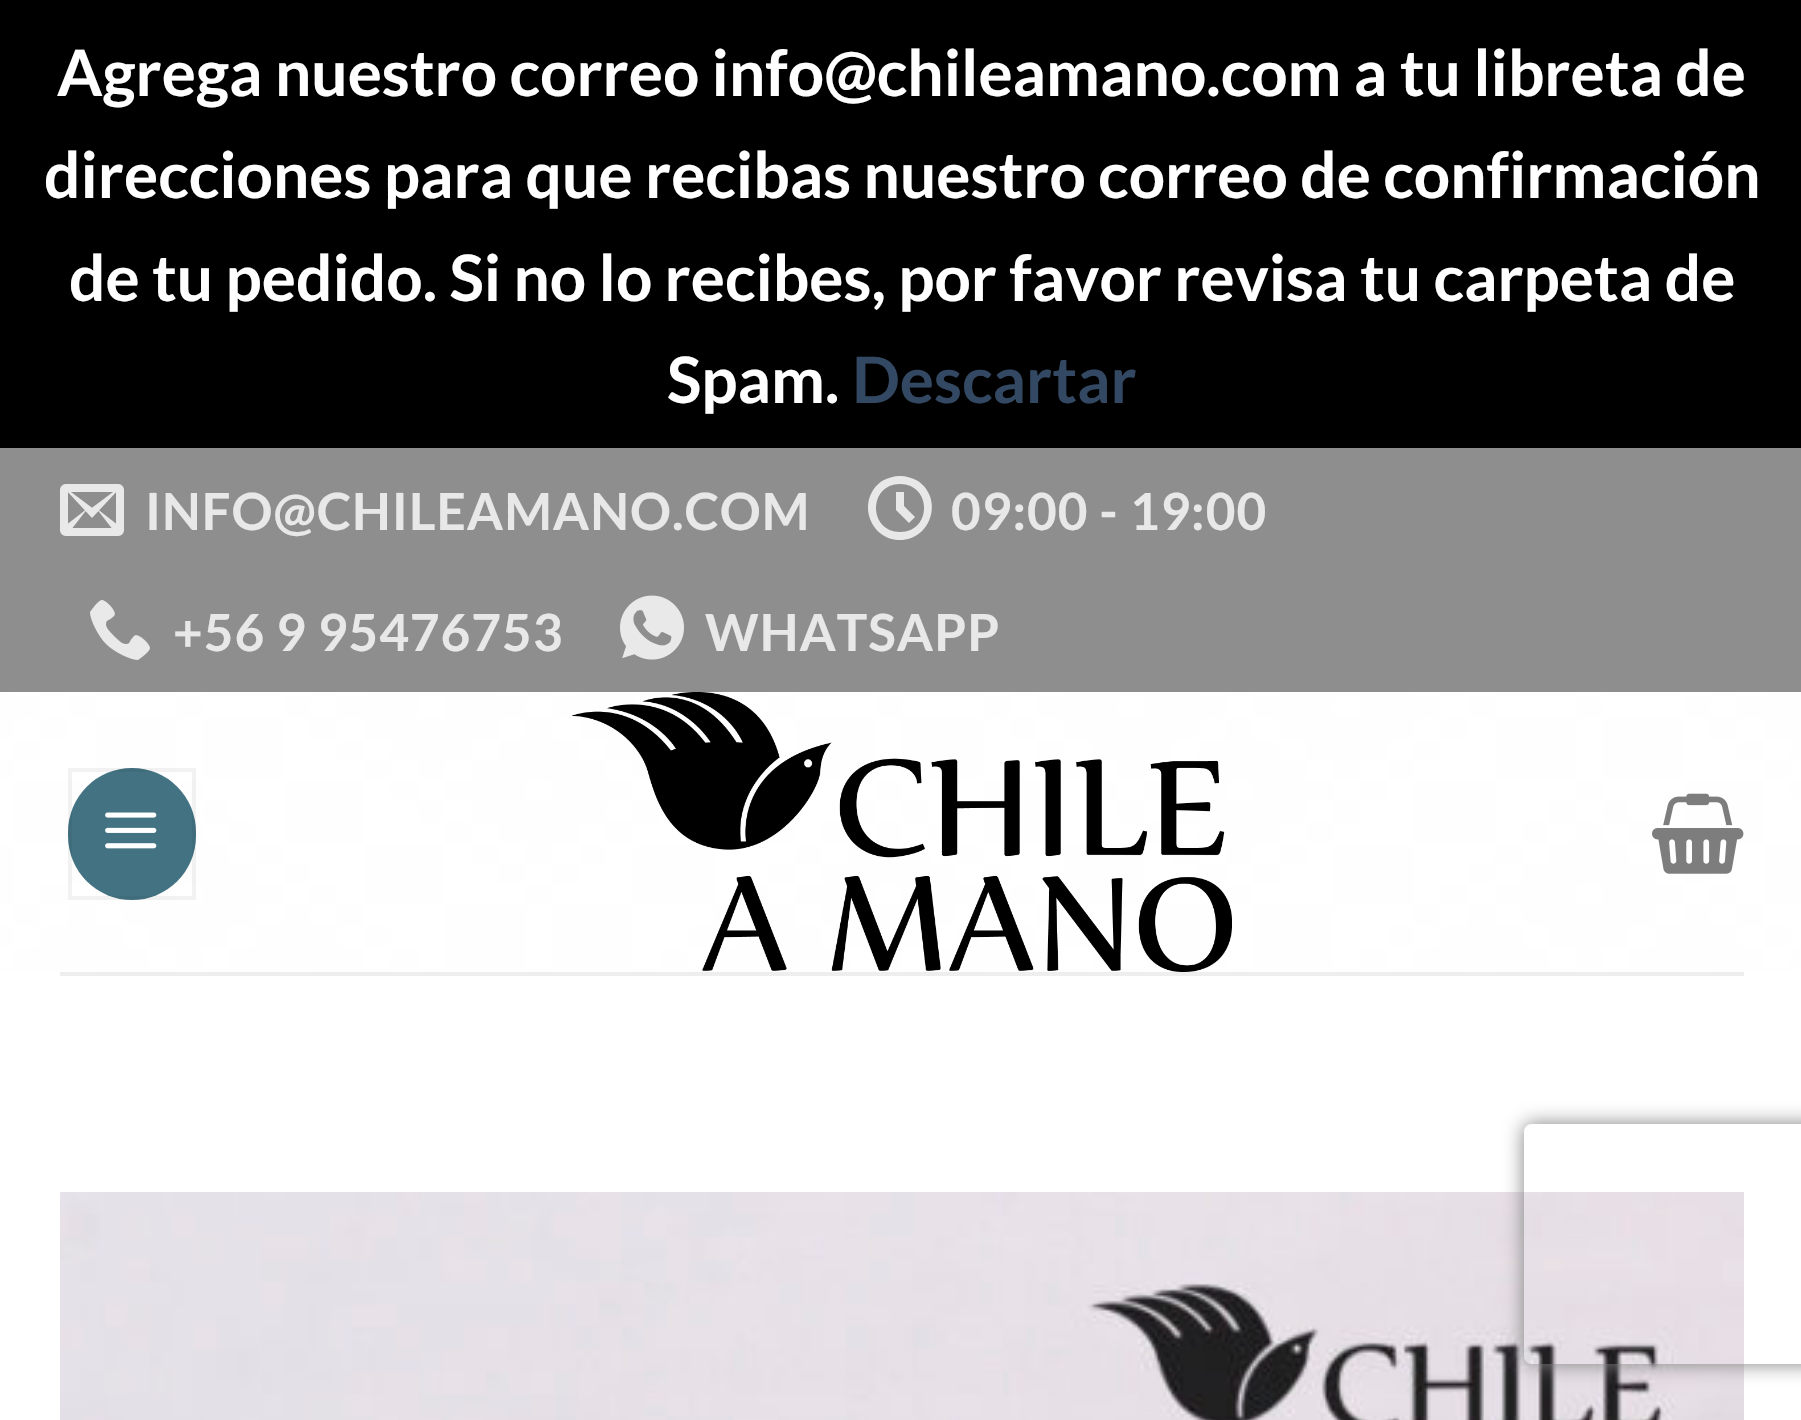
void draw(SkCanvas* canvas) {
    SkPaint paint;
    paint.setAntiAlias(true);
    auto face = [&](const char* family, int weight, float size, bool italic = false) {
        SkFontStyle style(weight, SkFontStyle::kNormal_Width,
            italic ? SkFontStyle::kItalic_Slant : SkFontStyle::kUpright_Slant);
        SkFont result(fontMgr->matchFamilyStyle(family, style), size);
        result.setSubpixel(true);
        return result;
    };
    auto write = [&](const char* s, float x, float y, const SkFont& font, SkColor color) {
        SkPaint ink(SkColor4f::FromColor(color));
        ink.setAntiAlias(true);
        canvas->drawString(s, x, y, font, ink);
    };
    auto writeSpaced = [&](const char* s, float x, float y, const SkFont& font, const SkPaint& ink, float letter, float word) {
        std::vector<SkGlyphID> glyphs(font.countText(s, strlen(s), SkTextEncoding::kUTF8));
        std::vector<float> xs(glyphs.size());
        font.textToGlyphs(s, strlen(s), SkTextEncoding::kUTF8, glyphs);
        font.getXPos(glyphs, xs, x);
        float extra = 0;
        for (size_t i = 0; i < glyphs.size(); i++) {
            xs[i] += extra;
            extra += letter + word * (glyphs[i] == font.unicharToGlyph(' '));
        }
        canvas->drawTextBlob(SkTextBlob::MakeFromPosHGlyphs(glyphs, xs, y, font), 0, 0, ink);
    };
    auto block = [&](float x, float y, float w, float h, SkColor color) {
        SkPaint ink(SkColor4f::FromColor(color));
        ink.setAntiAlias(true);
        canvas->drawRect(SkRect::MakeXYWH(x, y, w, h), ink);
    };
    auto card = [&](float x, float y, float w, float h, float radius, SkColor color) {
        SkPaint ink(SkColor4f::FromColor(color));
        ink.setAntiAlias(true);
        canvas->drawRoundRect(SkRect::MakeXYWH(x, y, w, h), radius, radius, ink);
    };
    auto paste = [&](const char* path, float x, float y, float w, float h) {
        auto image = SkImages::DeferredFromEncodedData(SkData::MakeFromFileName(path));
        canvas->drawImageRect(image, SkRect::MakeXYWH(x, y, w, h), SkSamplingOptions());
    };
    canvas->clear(SK_ColorBLACK);
    auto kFont1 = face("Lato", 700, 64);
    write("Agrega nuestro correo info@chileamano.com a tu libreta de", 57, 96, kFont1, SK_ColorWHITE);
    write("direcciones para que recibas nuestro correo de confirmación", 44, 198, kFont1, SK_ColorWHITE);
    write("de tu pedido. Si no lo recibes, por favor revisa tu carpeta de", 69, 301, kFont1, SK_ColorWHITE);
    write("Spam.", 667, 403, kFont1, SK_ColorWHITE);
    write("Descartar", 852, 403, kFont1, SkColorSetRGB(51, 72, 98));
    block(0, 692, 1801, 728, SK_ColorWHITE);
    block(0, 448, 1801, 244, SkColorSetRGB(142, 142, 142));
    paste("pic1.png", 60, 484, 64, 52);
    auto kFont2 = face("Lato", 700, 51.25f);
    paint.setColor(SkColorSetRGB(232, 232, 232));
    writeSpaced("INFO@CHILEAMANO.COM", 145, 530, kFont2, paint, 1, 0);
    canvas->drawPath(SkPathBuilder().moveTo(909, 523).lineTo(896, 510).lineTo(896, 492).lineTo(904, 492).lineTo(904, 506).lineTo(915, 517).close().moveTo(900, 476).cubicTo(894, 476, 887, 478, 882, 481).cubicTo(856, 499, 869, 540, 900, 540).cubicTo(931, 540, 944, 499, 918, 481).cubicTo(913, 478, 906, 476, 900, 476).close().moveTo(900, 532).cubicTo(868, 532, 868, 484, 900, 484).cubicTo(932, 484, 932, 532, 900, 532).close().detach(), paint);
    writeSpaced("09:00 - 19:00", 951, 530, kFont2, paint, 1, 0);
    paste("pic2.png", 90, 600, 60, 60);
    writeSpaced("+56 9 95476753", 173, 651, kFont2, paint, 1, 0);
    paste("pic3.png", 620, 595, 64, 65);
    writeSpaced("WHATSAPP", 705, 651, kFont2, paint, 1, 0);
    paste("pic4.png", 0, 692, 1801, 280);
    card(68, 768, 128, 132, 64, SkColorSetRGB(67, 115, 131));
    paint.setStyle(SkPaint::kStroke_Style);
    paint.setStrokeWidth(4);
    paint.setColor(SkColorSetARGB(13, 0, 0, 0));
    canvas->drawRect(SkRect::MakeXYWH(70, 770, 124, 128), paint);
    paste("pic5.png", 105, 812, 52, 37);
    paste("pic6.png", 572, 692, 660, 280);
    paste("pic7.png", 1652, 793, 92, 81);
    block(60, 972, 1684, 4, SkColorSetRGB(239, 238, 238));
    paste("pic8.png", 60, 1192, 1684, 228);
    canvas->save();
    canvas->clipPath(SkPathBuilder(SkPathFillType::kEvenOdd).moveTo(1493, 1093).lineTo(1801, 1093).lineTo(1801, 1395).lineTo(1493, 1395).close().moveTo(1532, 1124).lineTo(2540, 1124).cubicTo(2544.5f, 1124, 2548, 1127.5f, 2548, 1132).lineTo(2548, 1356).cubicTo(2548, 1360.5f, 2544.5f, 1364, 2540, 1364).lineTo(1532, 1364).cubicTo(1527.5f, 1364, 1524, 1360.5f, 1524, 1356).lineTo(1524, 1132).cubicTo(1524, 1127.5f, 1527.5f, 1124, 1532, 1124).close().detach(), true);
    paint.setStyle(SkPaint::kFill_Style);
    paint.setColor(SkColorSetRGB(128, 128, 128));
    paint.setMaskFilter(SkMaskFilter::MakeBlur(kNormal_SkBlurStyle, 10));
    canvas->drawRoundRect(SkRect::MakeXYWH(1524, 1124, 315, 240), 8, 8, paint);
    paint.setMaskFilter(nullptr);
    canvas->restore();
}
